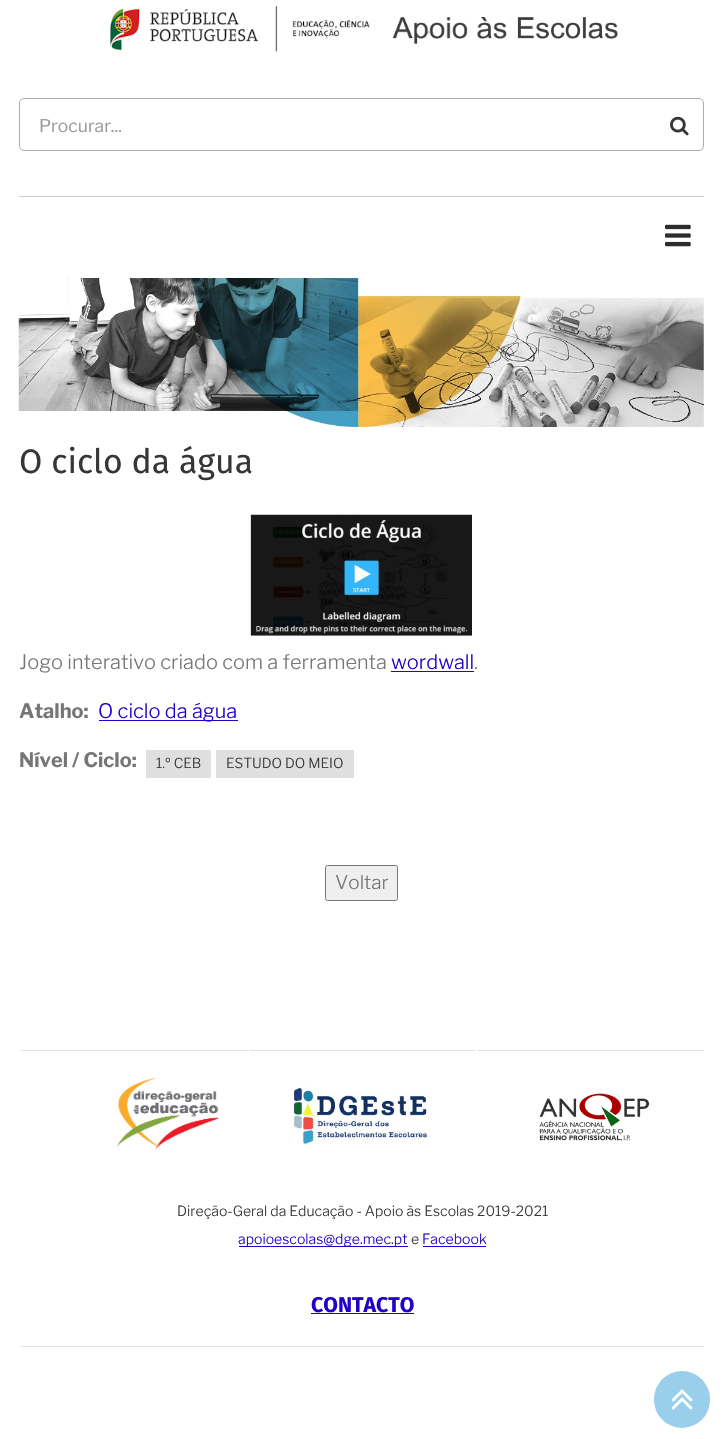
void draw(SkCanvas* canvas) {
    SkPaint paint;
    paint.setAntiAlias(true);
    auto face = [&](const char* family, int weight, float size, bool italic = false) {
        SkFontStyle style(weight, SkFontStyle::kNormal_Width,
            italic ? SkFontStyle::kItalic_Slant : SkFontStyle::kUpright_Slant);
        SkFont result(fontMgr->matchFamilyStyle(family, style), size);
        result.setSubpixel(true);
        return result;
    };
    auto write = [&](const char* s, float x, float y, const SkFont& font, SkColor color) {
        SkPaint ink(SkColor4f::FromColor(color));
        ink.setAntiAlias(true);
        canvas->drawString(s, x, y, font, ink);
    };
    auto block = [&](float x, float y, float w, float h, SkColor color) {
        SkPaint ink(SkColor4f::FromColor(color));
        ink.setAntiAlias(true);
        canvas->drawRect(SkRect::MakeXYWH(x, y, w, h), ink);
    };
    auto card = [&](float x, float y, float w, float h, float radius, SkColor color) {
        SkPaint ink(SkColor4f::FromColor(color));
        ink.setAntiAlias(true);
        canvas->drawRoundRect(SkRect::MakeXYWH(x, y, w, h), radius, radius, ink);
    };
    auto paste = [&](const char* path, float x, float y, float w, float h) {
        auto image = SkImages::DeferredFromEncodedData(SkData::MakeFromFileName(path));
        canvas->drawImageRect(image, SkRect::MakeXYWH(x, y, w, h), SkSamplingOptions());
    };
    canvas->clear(SK_ColorWHITE);
    block(19, 196, 685, 1, SkColorSetRGB(205, 205, 205));
    paste("pic1.png", 110, 6, 509, 46);
    paint.setStyle(SkPaint::kStroke_Style);
    paint.setStrokeWidth(1);
    paint.setColor(SkColorSetRGB(172, 172, 172));
    canvas->drawRoundRect(SkRect::MakeXYWH(19.5f, 98.5f, 684, 52), 4.5f, 4.5f, paint);
    auto kFont1 = face("Libre Franklin", 400, 17.5f);
    write("Procurar...", 39, 132, kFont1, SkColorSetRGB(156, 156, 156));
    paste("pic2.png", 670, 116, 19, 20);
    paste("pic3.png", 665, 224, 26, 23);
    paste("pic4.png", 18, 278, 686, 149);
    auto kFont2 = face("Fira Sans", 400, 33.75f);
    write("O ciclo da água", 19, 473, kFont2, SkColorSetRGB(54, 54, 54));
    paste("pic5.png", 250, 514, 222, 122);
    auto kFont3 = face("Libre Franklin", 300, 20);
    write("Jogo interativo criado com a ferramenta", 19, 669, kFont3, SkColorSetRGB(118, 118, 118));
    write("wordwall", 391, 669, kFont3, SkColorSetRGB(34, 0, 204));
    block(391, 671, 83, 1, SkColorSetRGB(34, 0, 204));
    write(".", 474, 669, kFont3, SkColorSetRGB(118, 118, 118));
    auto kFont4 = face("Libre Franklin", 700, 20);
    write("Atalho:", 19, 718, kFont4, SkColorSetRGB(118, 118, 118));
    block(99, 720, 139, 1, SkColorSetRGB(34, 0, 204));
    write("O ciclo da água", 98, 718, kFont3, SkColorSetRGB(34, 0, 204));
    write("Nível / Ciclo:", 19, 767, kFont4, SkColorSetRGB(118, 118, 118));
    block(146, 750, 65, 28, SkColorSetRGB(223, 223, 223));
    auto kFont5 = face("Libre Franklin", 300, 13.75f);
    write("1.º CEB", 156, 768, kFont5, SkColorSetRGB(54, 54, 54));
    block(216, 750, 138, 28, SkColorSetRGB(223, 223, 223));
    write("ESTUDO DO MEIO", 226, 768, kFont5, SkColorSetRGB(54, 54, 54));
    paint.setStyle(SkPaint::kFill_Style);
    paint.setColor(SkColorSetRGB(239, 239, 239));
    canvas->drawRoundRect(SkRect::MakeXYWH(325.5f, 865.5f, 72, 35), 2, 2, paint);
    paint.setStyle(SkPaint::kStroke_Style);
    paint.setColor(SkColorSetRGB(118, 118, 118));
    canvas->drawRoundRect(SkRect::MakeXYWH(325.5f, 865.5f, 72, 35), 2, 2, paint);
    auto kFont6 = face("Libre Franklin", 300, 19);
    write("Voltar", 335, 889, kFont6, SkColorSetRGB(118, 118, 118));
    block(21, 1050, 227, 1, SkColorSetRGB(225, 225, 225));
    block(249, 1050, 227, 1, SkColorSetRGB(225, 225, 225));
    block(478, 1050, 226, 1, SkColorSetRGB(225, 225, 225));
    paste("pic6.png", 116, 1078, 103, 73);
    paste("pic7.png", 292, 1087, 136, 60);
    paste("pic8.png", 539, 1093, 111, 48);
    block(21, 1346, 683, 1, SkColorSetRGB(225, 225, 225));
    auto kFont7 = face("Libre Franklin", 300, 14.05f);
    write("Direção-Geral da Educação - Apoio às Escolas 2019-2021", 177, 1216, kFont7, SkColorSetRGB(54, 54, 54));
    block(239, 1246, 169, 1, SkColorSetRGB(34, 0, 204));
    write("apoioescolas@dge.mec.pt", 238, 1244, kFont7, SkColorSetRGB(34, 0, 204));
    write("e", 411, 1244, kFont7, SkColorSetRGB(54, 54, 54));
    write("Facebook", 422, 1244, kFont7, SkColorSetRGB(34, 0, 204));
    block(423, 1246, 63, 1, SkColorSetRGB(34, 0, 204));
    auto kFont8 = face("Fira Sans", 700, 21.25f);
    write("CONTACTO", 311, 1312, kFont8, SkColorSetRGB(34, 0, 204));
    block(311, 1313, 103, 1, SkColorSetRGB(34, 0, 204));
    card(654, 1371, 56, 57, 28, SkColorSetRGB(154, 207, 236));
    paste("pic9.png", 671, 1389, 22, 21);
}
